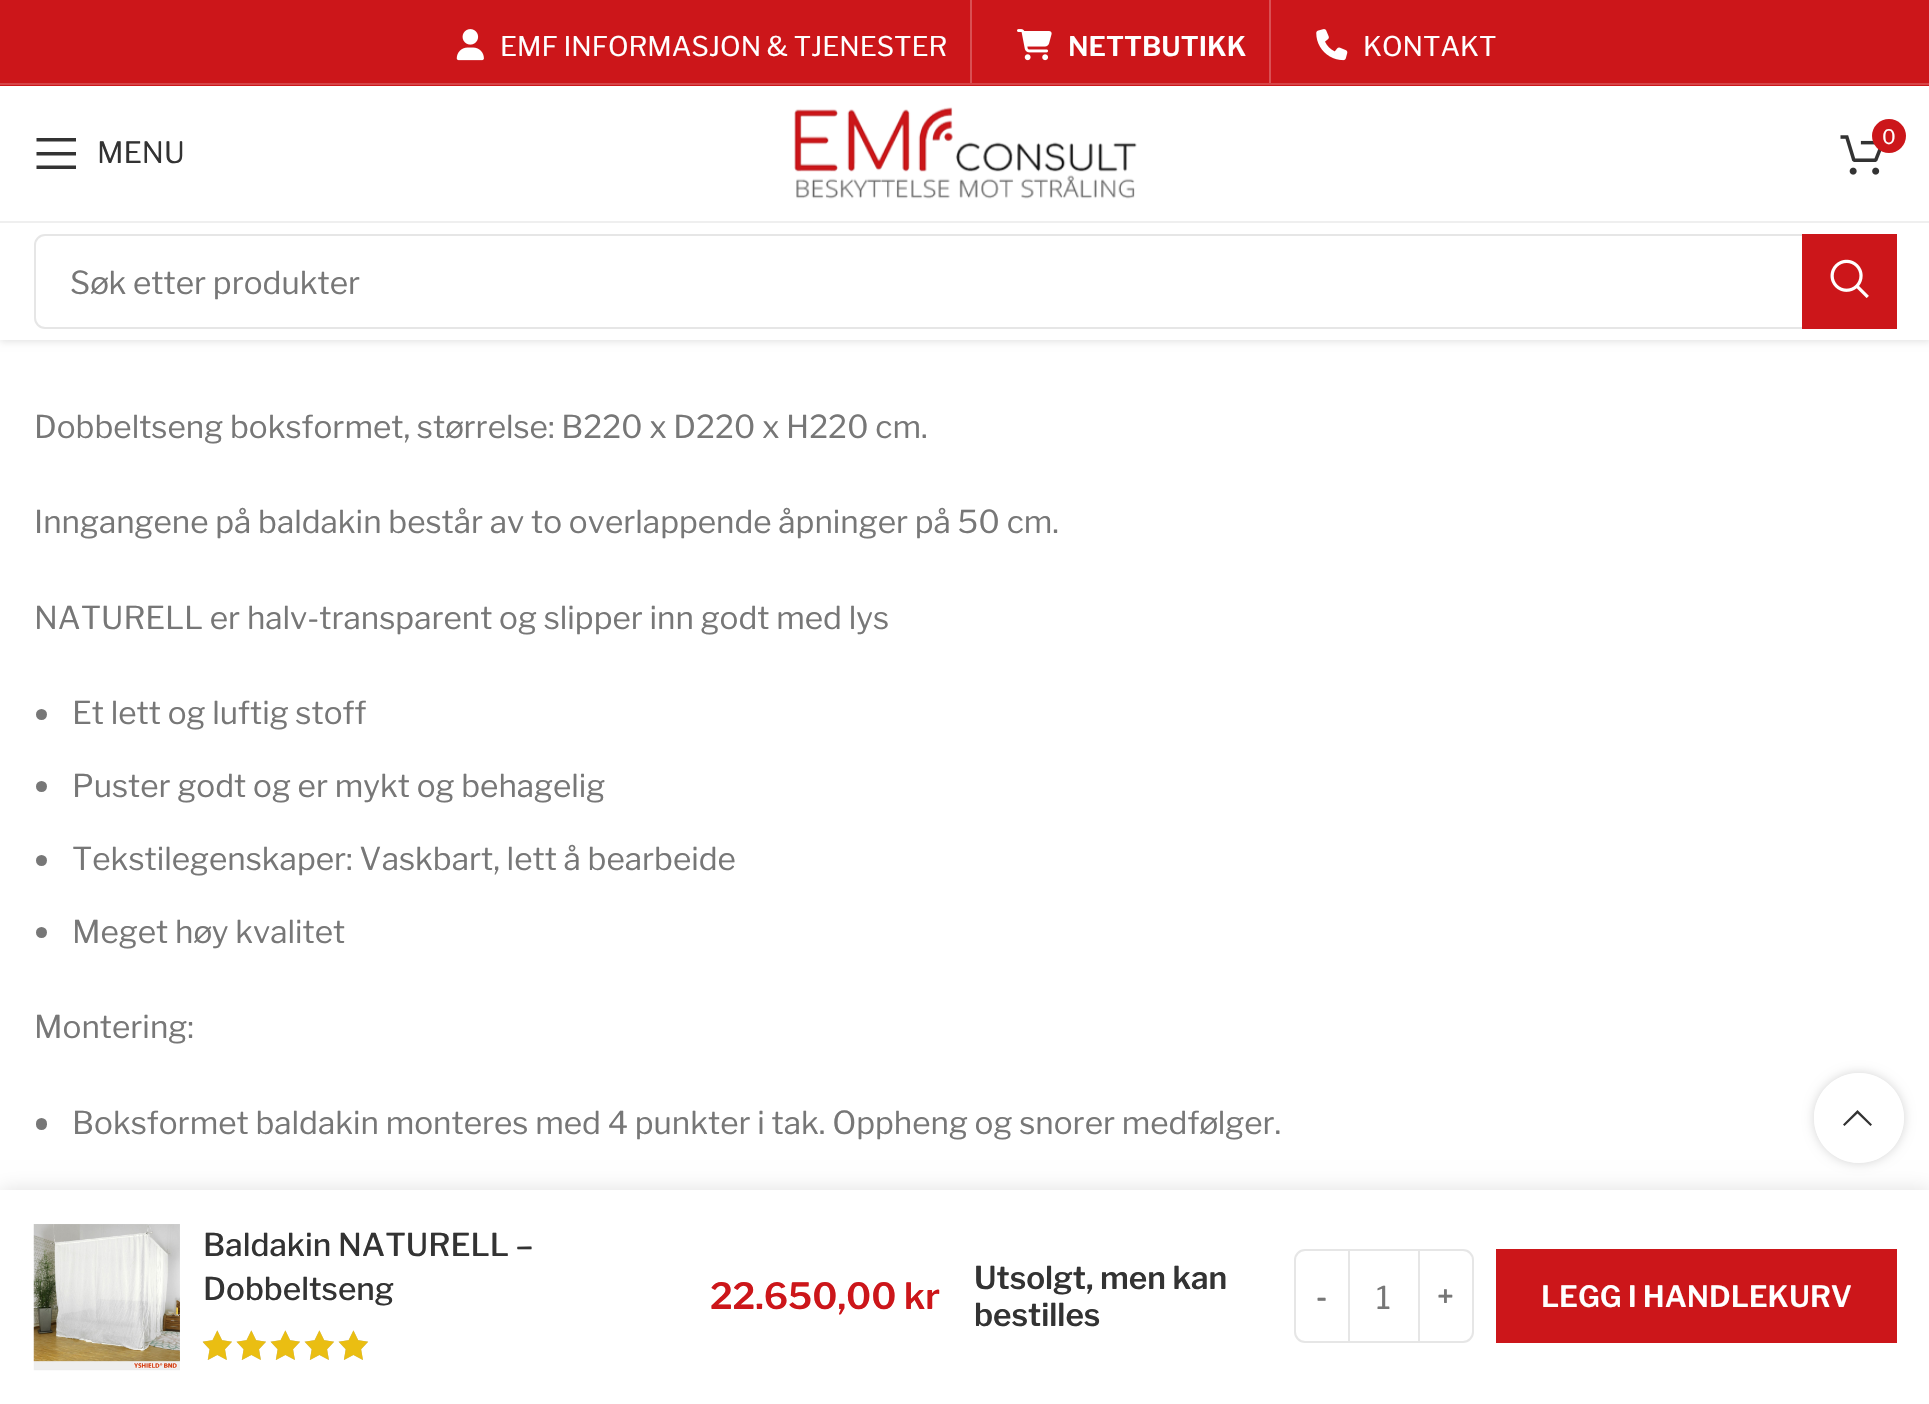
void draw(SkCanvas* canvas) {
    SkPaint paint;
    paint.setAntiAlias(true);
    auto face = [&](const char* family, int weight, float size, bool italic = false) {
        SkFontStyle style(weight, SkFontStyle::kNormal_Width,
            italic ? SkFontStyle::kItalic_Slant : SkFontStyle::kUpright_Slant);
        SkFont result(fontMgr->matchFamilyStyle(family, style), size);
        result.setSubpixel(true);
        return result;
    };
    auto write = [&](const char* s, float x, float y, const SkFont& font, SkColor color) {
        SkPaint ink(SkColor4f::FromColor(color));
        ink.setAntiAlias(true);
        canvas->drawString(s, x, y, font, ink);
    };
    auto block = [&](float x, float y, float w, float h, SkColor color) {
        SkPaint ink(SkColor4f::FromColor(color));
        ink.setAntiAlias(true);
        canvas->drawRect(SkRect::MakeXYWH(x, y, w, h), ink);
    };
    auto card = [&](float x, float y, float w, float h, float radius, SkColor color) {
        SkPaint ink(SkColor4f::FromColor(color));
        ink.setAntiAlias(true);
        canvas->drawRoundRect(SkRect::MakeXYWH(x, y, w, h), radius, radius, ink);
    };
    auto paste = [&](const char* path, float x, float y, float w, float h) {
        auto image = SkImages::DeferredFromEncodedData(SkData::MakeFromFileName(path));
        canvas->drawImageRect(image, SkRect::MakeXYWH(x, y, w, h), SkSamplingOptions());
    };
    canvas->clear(SK_ColorWHITE);
    paint.setColor(SkColorSetARGB(26, 0, 0, 0));
    paint.setMaskFilter(SkMaskFilter::MakeBlur(kNormal_SkBlurStyle, 3.5f));
    canvas->drawRect(SkRect::MakeXYWH(0, 2, 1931, 340), paint);
    paint.setMaskFilter(nullptr);
    block(0, 0, 1929, 86, SkColorSetRGB(204, 22, 26));
    block(0, 83, 1929, 2, SkColorSetRGB(214, 69, 72));
    paste("pic1.png", 456, 29, 28, 32);
    auto kFont1 = face("Libre Franklin", 400, 27);
    write("EMF INFORMASJON & TJENESTER", 500, 56, kFont1, SK_ColorWHITE);
    block(970, 0, 2, 83, SkColorSetRGB(217, 80, 83));
    paste("pic2.png", 1017, 29, 35, 32);
    auto kFont2 = face("Libre Franklin", 600, 27);
    write("NETTBUTIKK", 1068, 56, kFont2, SK_ColorWHITE);
    block(1269, 0, 2, 83, SkColorSetRGB(217, 80, 83));
    paste("pic3.png", 1316, 29, 32, 32);
    write("KONTAKT", 1363, 56, kFont1, SK_ColorWHITE);
    block(0, 86, 1929, 135, SK_ColorWHITE);
    block(0, 221, 1929, 2, SkColorSetRGB(239, 239, 239));
    paste("pic4.png", 794, 107, 343, 92);
    paste("pic5.png", 1840, 135, 42, 40);
    paint.setColor(SkColorSetRGB(204, 22, 26));
    canvas->drawCircle(1889, 136, 17, paint);
    auto kFont3 = face("Libre Franklin", 400, 20);
    write("0", 1882, 144, kFont3, SK_ColorWHITE);
    paint.setColor(SkColorSetRGB(51, 51, 51));
    canvas->drawPath(SkPathBuilder().moveTo(36.5f, 141.5f).lineTo(76, 141.5f).lineTo(76, 138).lineTo(36.5f, 138).close().moveTo(36.5f, 155.5f).lineTo(76, 155.5f).lineTo(76, 152).lineTo(36.5f, 152).close().moveTo(36.5f, 169).lineTo(76, 169).lineTo(76, 165.5f).lineTo(36.5f, 165.5f).close().detach(), paint);
    auto kFont4 = face("Libre Franklin", 400, 29.25f);
    write("MENU", 97, 163, kFont4, SkColorSetRGB(51, 51, 51));
    block(0, 223, 1929, 117, SK_ColorWHITE);
    paint.setStyle(SkPaint::kStroke_Style);
    paint.setStrokeWidth(2);
    paint.setColor(SkColorSetRGB(230, 230, 230));
    canvas->drawRoundRect(SkRect::MakeXYWH(35, 235, 1861, 93), 10, 10, paint);
    auto kFont5 = face("Libre Franklin", 400, 31.5f);
    write("Søk etter produkter", 70, 294, kFont5, SkColorSetRGB(119, 119, 119));
    block(1802, 234, 95, 95, SkColorSetRGB(204, 22, 26));
    paste("pic6.png", 1830, 259, 39, 39);
    write("Dobbeltseng boksformet, størrelse: B220 x D220 x H220 cm.", 34, 438, kFont5, SkColorSetRGB(119, 119, 119));
    write("Inngangene på baldakin består av to overlappende åpninger på 50 cm.", 34, 533, kFont5, SkColorSetRGB(119, 119, 119));
    write("NATURELL er halv-transparent og slipper inn godt med lys", 34, 629, kFont5, SkColorSetRGB(119, 119, 119));
    paint.setStyle(SkPaint::kFill_Style);
    paint.setColor(SkColorSetRGB(119, 119, 119));
    canvas->drawCircle(41.5f, 714.5f, 5.5f, paint);
    write("Et lett og luftig stoff", 72, 724, kFont5, SkColorSetRGB(119, 119, 119));
    canvas->drawCircle(41.5f, 786.5f, 5.5f, paint);
    write("Puster godt og er mykt og behagelig", 72, 797, kFont5, SkColorSetRGB(119, 119, 119));
    canvas->drawCircle(41.5f, 860.5f, 5.5f, paint);
    write("Tekstilegenskaper: Vaskbart, lett å bearbeide", 72, 870, kFont5, SkColorSetRGB(119, 119, 119));
    canvas->drawCircle(41.5f, 932.5f, 5.5f, paint);
    write("Meget høy kvalitet", 72, 943, kFont5, SkColorSetRGB(119, 119, 119));
    write("Montering:", 34, 1038, kFont5, SkColorSetRGB(119, 119, 119));
    card(36, 1118, 11, 12, 5.5f, SkColorSetRGB(119, 119, 119));
    write("Boksformet baldakin monteres med 4 punkter i tak. Oppheng og snorer medfølger.", 72, 1134, kFont5, SkColorSetRGB(119, 119, 119));
    canvas->save();
    canvas->clipPath(SkPathBuilder(SkPathFillType::kEvenOdd).moveTo(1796, 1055).lineTo(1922, 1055).lineTo(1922, 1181).lineTo(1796, 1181).close().moveTo(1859, 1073).cubicTo(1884, 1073, 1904, 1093, 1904, 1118).cubicTo(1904, 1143, 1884, 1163, 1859, 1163).cubicTo(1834, 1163, 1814, 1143, 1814, 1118).cubicTo(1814, 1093, 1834, 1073, 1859, 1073).close().detach(), true);
    paint.setColor(SkColorSetARGB(43, 0, 0, 0));
    paint.setMaskFilter(SkMaskFilter::MakeBlur(kNormal_SkBlurStyle, 5.5f));
    canvas->drawRoundRect(SkRect::MakeXYWH(1814, 1073, 90, 90), 45, 45, paint);
    paint.setMaskFilter(nullptr);
    canvas->restore();
    paint.setColor(SkColorSetARGB(31, 0, 0, 0));
    paint.setMaskFilter(SkMaskFilter::MakeBlur(kNormal_SkBlurStyle, 10));
    canvas->drawRect(SkRect::MakeXYWH(0, 1190, 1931, 214), paint);
    paint.setMaskFilter(nullptr);
    paint.setColor(SkColorSetARGB(230, 255, 255, 255));
    canvas->drawCircle(1859, 1118, 45, paint);
    paint.setColor(SkColorSetRGB(51, 51, 51));
    canvas->drawPath(SkPathBuilder().moveTo(1870.5f, 1126).lineTo(1872, 1124.5f).lineTo(1857.5f, 1110).lineTo(1843, 1124.5f).lineTo(1844.5f, 1126).lineTo(1857.5f, 1113.5f).close().detach(), paint);
    block(0, 1190, 1929, 214, SK_ColorWHITE);
    paste("pic7.png", 33, 1224, 147, 147);
    auto kFont6 = face("Libre Franklin", 500, 31.5f);
    write("Baldakin NATURELL –", 203, 1256, kFont6, SkColorSetRGB(51, 51, 51));
    write("Dobbeltseng", 203, 1300, kFont6, SkColorSetRGB(51, 51, 51));
    paste("pic8.png", 202, 1330, 166, 30);
    paste("pic9.png", 203, 1330, 166, 30);
    auto kFont7 = face("Libre Franklin", 600, 36);
    write("22.650,00 kr", 710, 1309, kFont7, SkColorSetRGB(204, 22, 26));
    auto kFont8 = face("Libre Franklin", 600, 31.5f);
    write("Utsolgt, men kan", 974, 1289, kFont8, SkColorSetRGB(51, 51, 51));
    write("bestilles", 974, 1326, kFont8, SkColorSetRGB(51, 51, 51));
    paint.setStyle(SkPaint::kStroke_Style);
    paint.setColor(SkColorSetRGB(230, 230, 230));
    canvas->drawPath(SkPathBuilder().moveTo(1305, 1250).lineTo(1349, 1250).lineTo(1349, 1342).lineTo(1305, 1342).cubicTo(1299.5f, 1342, 1295, 1337.5f, 1295, 1332).lineTo(1295, 1260).cubicTo(1295, 1254.5f, 1299.5f, 1250, 1305, 1250).close().detach(), paint);
    auto kFont9 = face("Libre Franklin", 600, 29.25f);
    write("-", 1316, 1307, kFont9, SkColorSetRGB(119, 119, 119));
    block(1350, 1249, 68, 2, SkColorSetRGB(230, 230, 230));
    block(1350, 1341, 68, 2, SkColorSetRGB(230, 230, 230));
    write("1", 1376, 1309, kFont5, SkColorSetRGB(119, 119, 119));
    canvas->drawPath(SkPathBuilder().moveTo(1419, 1250).lineTo(1463, 1250).cubicTo(1468.5f, 1250, 1473, 1254.5f, 1473, 1260).lineTo(1473, 1332).cubicTo(1473, 1337.5f, 1468.5f, 1342, 1463, 1342).lineTo(1419, 1342).close().detach(), paint);
    write("+", 1437, 1307, kFont9, SkColorSetRGB(119, 119, 119));
    block(1496, 1249, 401, 94, SkColorSetRGB(204, 22, 26));
    write("LEGG I HANDLEKURV", 1541, 1307, kFont9, SK_ColorWHITE);
}
